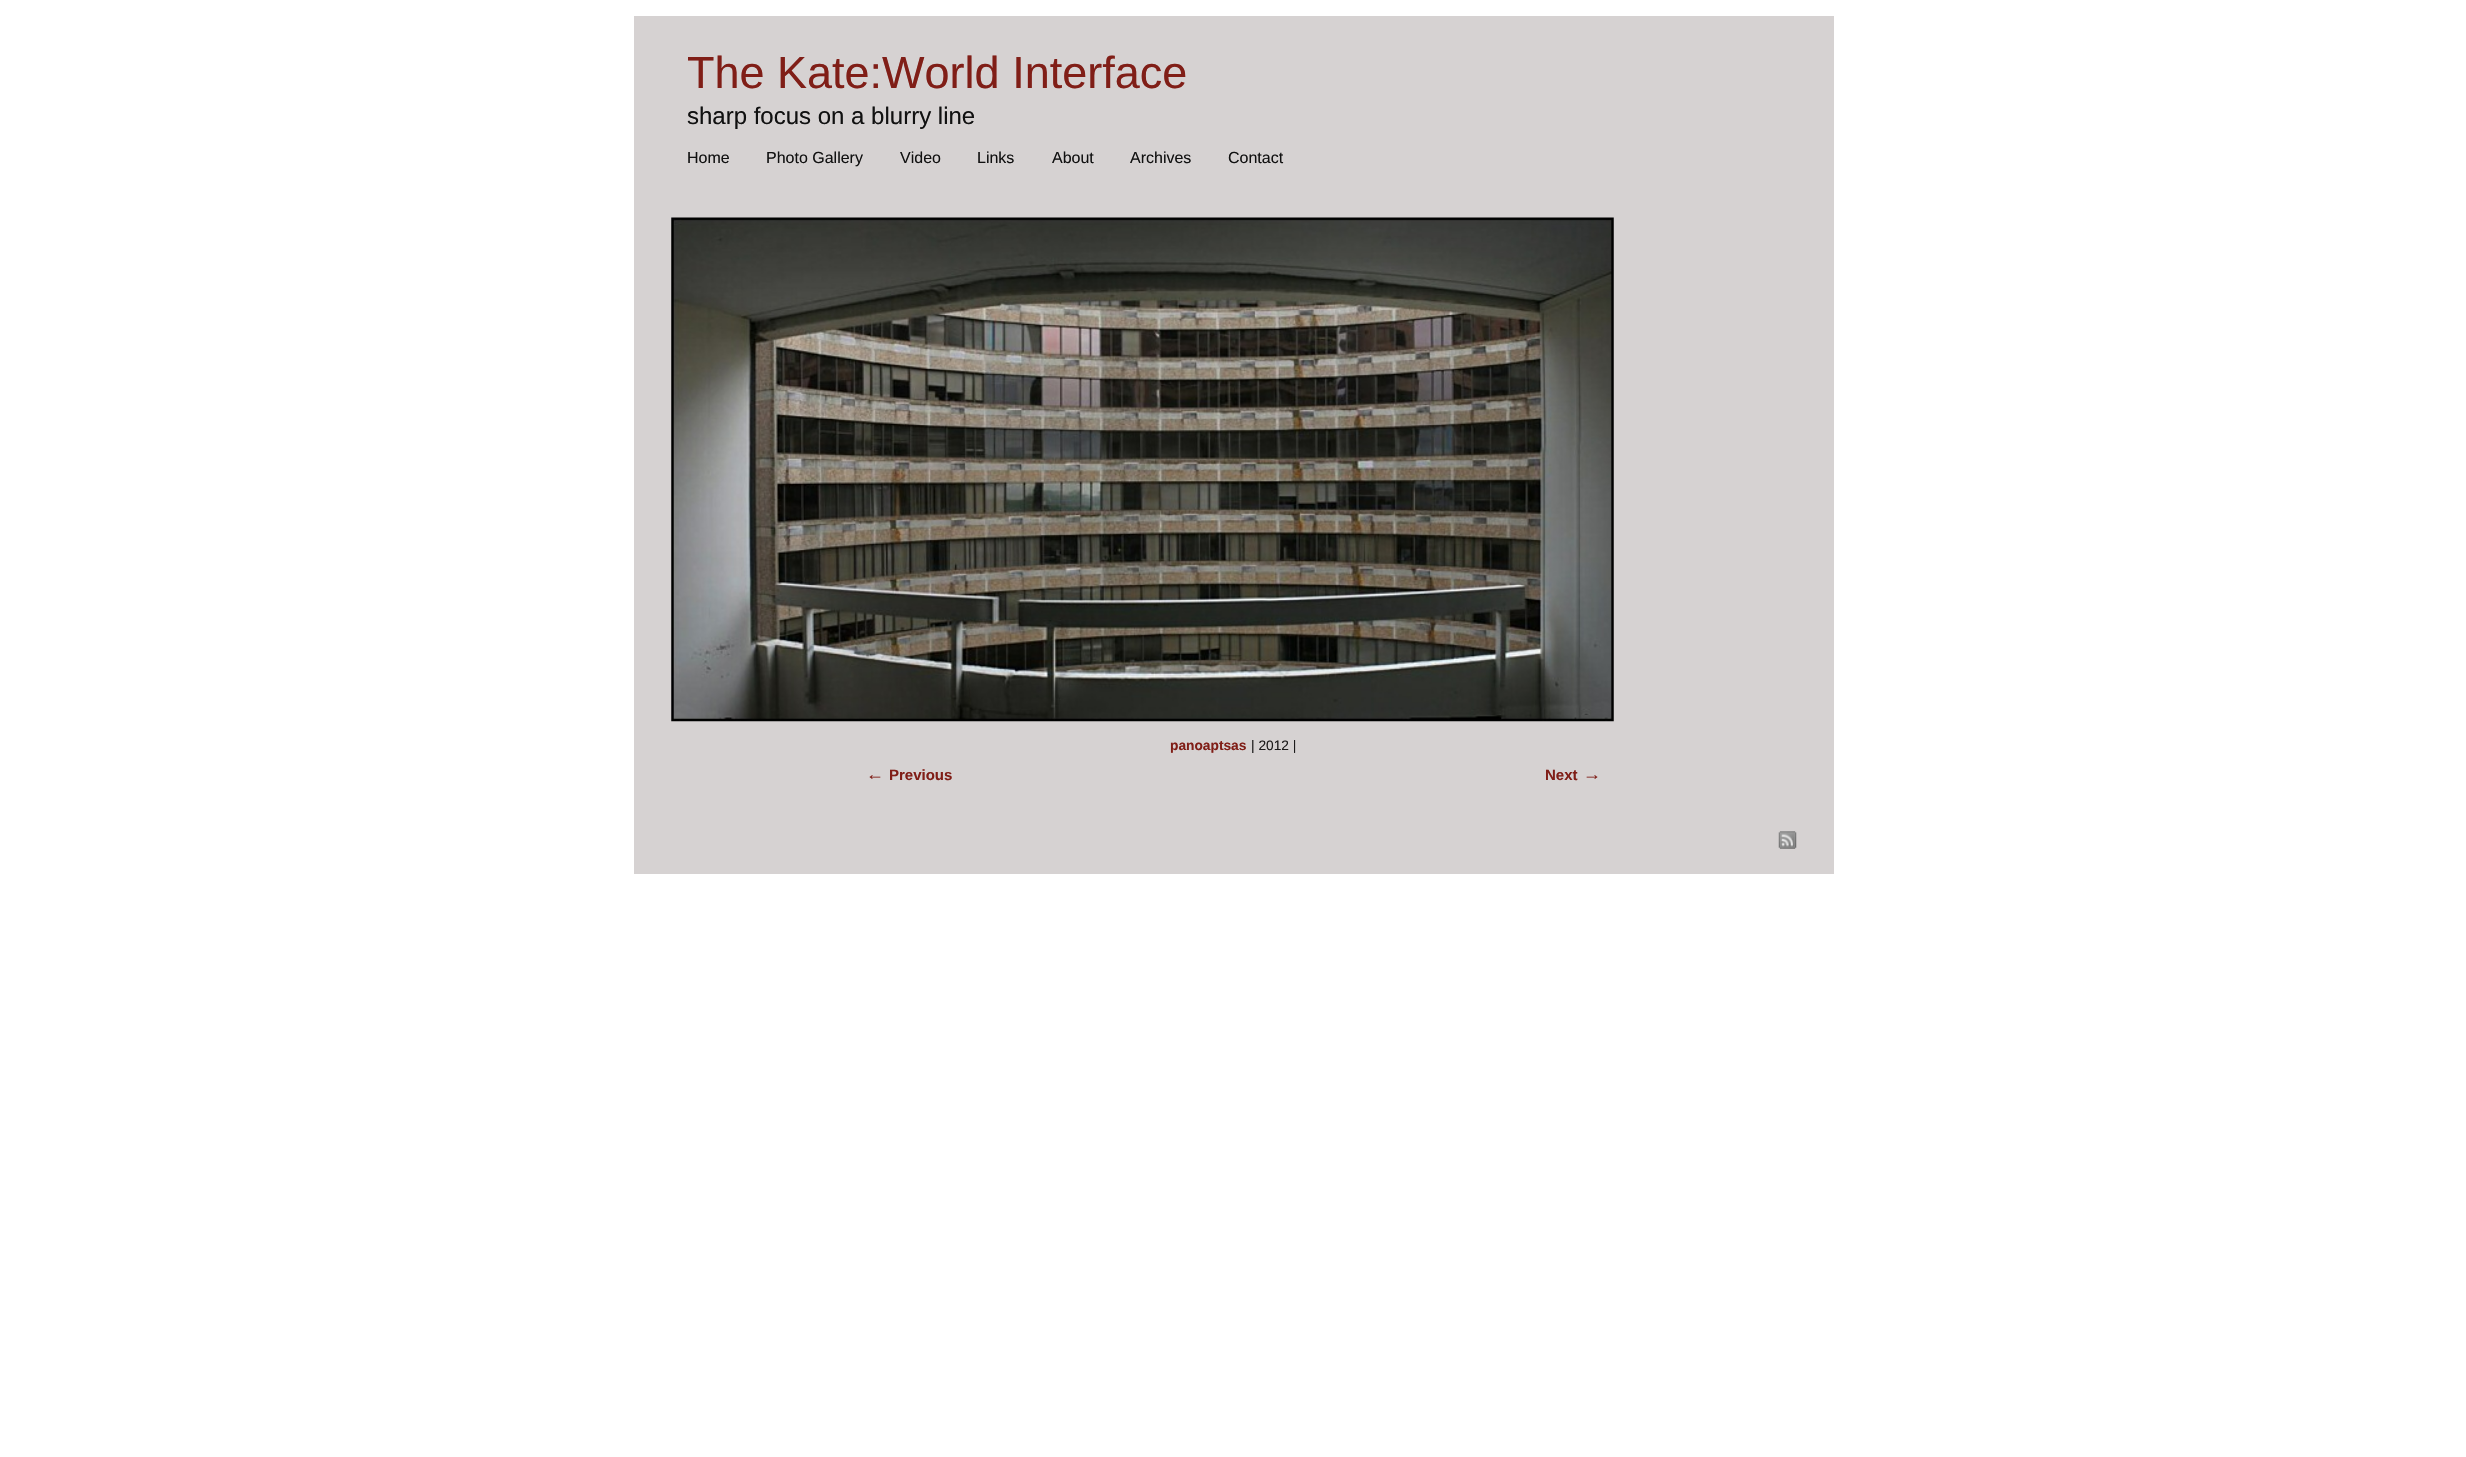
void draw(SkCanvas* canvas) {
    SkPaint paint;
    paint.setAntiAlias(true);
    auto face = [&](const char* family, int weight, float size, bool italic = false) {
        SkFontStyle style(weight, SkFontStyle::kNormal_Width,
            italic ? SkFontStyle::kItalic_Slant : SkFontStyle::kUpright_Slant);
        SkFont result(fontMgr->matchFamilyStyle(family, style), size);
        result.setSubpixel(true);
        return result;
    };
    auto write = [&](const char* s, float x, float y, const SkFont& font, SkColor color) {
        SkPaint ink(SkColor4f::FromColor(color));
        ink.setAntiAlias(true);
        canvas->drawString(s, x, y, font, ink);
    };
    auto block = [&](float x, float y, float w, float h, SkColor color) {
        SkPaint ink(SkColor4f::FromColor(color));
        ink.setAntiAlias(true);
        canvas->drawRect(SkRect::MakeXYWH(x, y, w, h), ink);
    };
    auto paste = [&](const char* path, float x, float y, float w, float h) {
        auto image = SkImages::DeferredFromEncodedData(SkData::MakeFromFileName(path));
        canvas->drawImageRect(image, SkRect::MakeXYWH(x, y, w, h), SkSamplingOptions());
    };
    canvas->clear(SK_ColorWHITE);
    block(634, 16, 1200, 858, SkColorSetRGB(214, 210, 210));
    auto kFont1 = face("Liberation Sans", 400, 45);
    write("The Kate:World Interface", 687, 88, kFont1, SkColorSetRGB(128, 30, 23));
    auto kFont2 = face("Liberation Sans", 400, 24);
    write("sharp focus on a blurry line", 687, 124, kFont2, SkColorSetRGB(17, 17, 17));
    auto kFont3 = face("Liberation Sans", 400, 16);
    write("Home", 687, 163, kFont3, SkColorSetRGB(17, 17, 17));
    write("Photo Gallery", 766, 163, kFont3, SkColorSetRGB(17, 17, 17));
    write("Video", 900, 163, kFont3, SkColorSetRGB(17, 17, 17));
    write("Links", 977, 163, kFont3, SkColorSetRGB(17, 17, 17));
    write("About", 1052, 163, kFont3, SkColorSetRGB(17, 17, 17));
    write("Archives", 1130, 163, kFont3, SkColorSetRGB(17, 17, 17));
    write("Contact", 1228, 163, kFont3, SkColorSetRGB(17, 17, 17));
    paste("pic1.png", 671, 217, 943, 505);
    auto kFont4 = face("Liberation Sans", 700, 13.75f);
    write("panoaptsas", 1170, 750, kFont4, SkColorSetRGB(128, 30, 23));
    auto kFont5 = face("Liberation Sans", 400, 13.75f);
    write("| 2012 |", 1251, 750, kFont5, SkColorSetRGB(28, 27, 27));
    auto kFont6 = face("Liberation Sans", 700, 18);
    write("←", 866, 780, kFont6, SkColorSetRGB(128, 30, 23));
    auto kFont7 = face("Liberation Sans", 700, 15);
    write("Previous", 889, 780, kFont7, SkColorSetRGB(128, 30, 23));
    write("Next", 1545, 780, kFont7, SkColorSetRGB(128, 30, 23));
    write("→", 1583, 780, kFont6, SkColorSetRGB(128, 30, 23));
    paste("pic2.png", 1778, 831, 19, 18);
}
